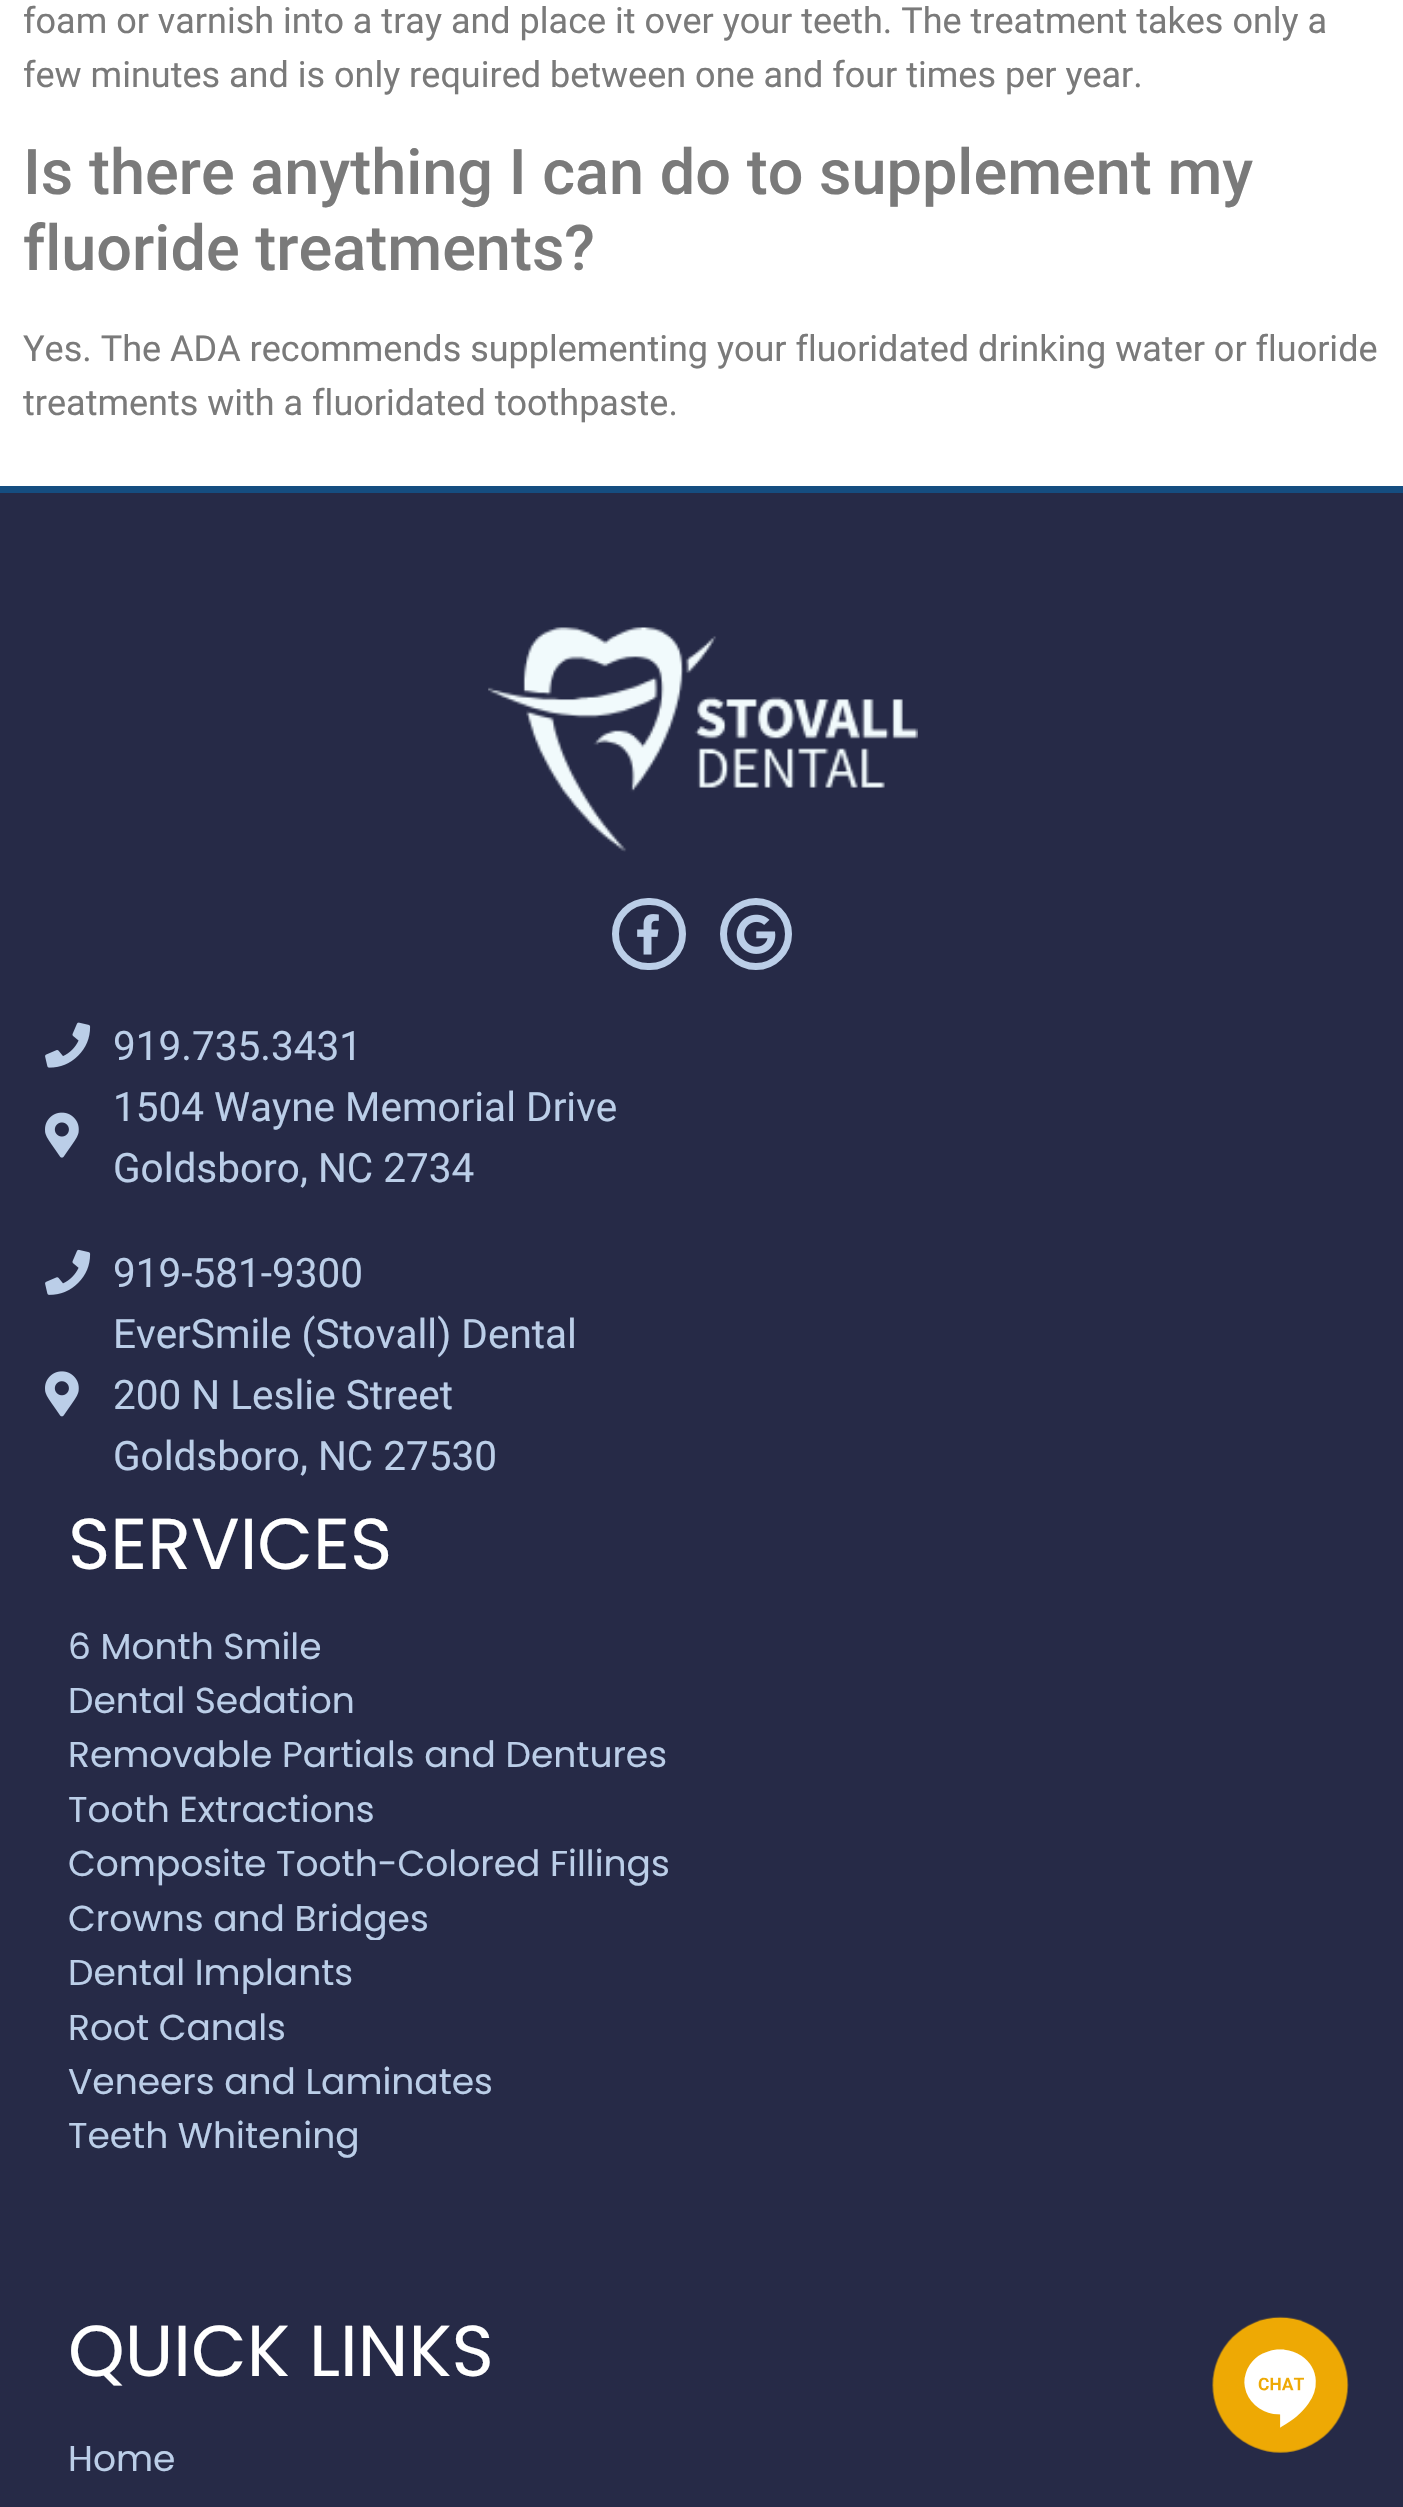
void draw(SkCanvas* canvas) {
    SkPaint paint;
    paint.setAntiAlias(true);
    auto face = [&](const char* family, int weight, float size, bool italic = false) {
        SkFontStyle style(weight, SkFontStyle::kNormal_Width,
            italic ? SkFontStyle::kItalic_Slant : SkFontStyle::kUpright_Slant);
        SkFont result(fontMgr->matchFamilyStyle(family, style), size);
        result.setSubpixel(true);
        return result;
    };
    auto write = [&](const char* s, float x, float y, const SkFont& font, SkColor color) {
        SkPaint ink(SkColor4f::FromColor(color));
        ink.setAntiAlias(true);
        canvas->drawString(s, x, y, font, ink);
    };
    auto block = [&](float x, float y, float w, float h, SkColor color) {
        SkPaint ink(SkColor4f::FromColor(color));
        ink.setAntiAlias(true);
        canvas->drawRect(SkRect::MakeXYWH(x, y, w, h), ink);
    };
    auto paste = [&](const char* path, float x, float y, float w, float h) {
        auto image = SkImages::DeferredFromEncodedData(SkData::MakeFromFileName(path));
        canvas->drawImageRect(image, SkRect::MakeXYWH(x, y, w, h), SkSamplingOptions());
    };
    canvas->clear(SK_ColorWHITE);
    auto kFont1 = face("Roboto", 400, 36);
    write("foam or varnish into a tray and place it over your teeth. The treatment takes only a", 23, 33, kFont1, SkColorSetRGB(122, 122, 122));
    write("few minutes and is only required between one and four times per year.", 23, 87, kFont1, SkColorSetRGB(122, 122, 122));
    auto kFont2 = face("Roboto", 500, 63);
    write("Is there anything I can do to supplement my", 23, 194, kFont2, SkColorSetRGB(122, 122, 122));
    write("fluoride treatments?", 23, 270, kFont2, SkColorSetRGB(122, 122, 122));
    write("Yes. The ADA recommends supplementing your fluoridated drinking water or fluoride", 23, 361, kFont1, SkColorSetRGB(122, 122, 122));
    write("treatments with a fluoridated toothpaste.", 23, 415, kFont1, SkColorSetRGB(122, 122, 122));
    block(0, 493, 1403, 2014, SkColorSetRGB(38, 42, 71));
    block(0, 486, 1403, 7, SkColorSetRGB(21, 77, 128));
    paste("pic1.png", 488, 627, 430, 225);
    paint.setStyle(SkPaint::kStroke_Style);
    paint.setStrokeWidth(7);
    paint.setColor(SkColorSetRGB(187, 206, 232));
    canvas->drawRoundRect(SkRect::MakeXYWH(615.5f, 901.5f, 67, 65), 32.5f, 32.5f, paint);
    paste("pic2.png", 637, 914, 22, 41);
    canvas->drawCircle(756, 934, 32.5f, paint);
    paste("pic3.png", 736, 914, 40, 40);
    paste("pic4.png", 45, 1022, 46, 46);
    auto kFont3 = face("Roboto", 400, 40.5f);
    write("919.735.3431", 113, 1060, kFont3, SkColorSetRGB(187, 206, 232));
    paste("pic5.png", 45, 1112, 34, 46);
    write("1504 Wayne Memorial Drive", 113, 1121, kFont3, SkColorSetRGB(187, 206, 232));
    write("Goldsboro, NC 2734", 113, 1182, kFont3, SkColorSetRGB(187, 206, 232));
    paste("pic6.png", 45, 1249, 46, 46);
    write("919-581-9300", 113, 1287, kFont3, SkColorSetRGB(187, 206, 232));
    paste("pic7.png", 45, 1371, 34, 46);
    write("EverSmile (Stovall) Dental", 113, 1348, kFont3, SkColorSetRGB(187, 206, 232));
    write("200 N Leslie Street", 113, 1409, kFont3, SkColorSetRGB(187, 206, 232));
    write("Goldsboro, NC 27530", 113, 1470, kFont3, SkColorSetRGB(187, 206, 232));
    auto kFont4 = face("Poppins", 400, 72);
    write("SERVICES", 68, 1569, kFont4, SK_ColorWHITE);
    auto kFont5 = face("Poppins", 400, 36);
    write("6 Month Smile", 68, 1659, kFont5, SkColorSetRGB(187, 206, 232));
    write("Dental Sedation", 68, 1713, kFont5, SkColorSetRGB(187, 206, 232));
    write("Removable Partials and Dentures", 68, 1767, kFont5, SkColorSetRGB(187, 206, 232));
    write("Tooth Extractions", 68, 1822, kFont5, SkColorSetRGB(187, 206, 232));
    write("Composite Tooth-Colored Fillings", 68, 1876, kFont5, SkColorSetRGB(187, 206, 232));
    canvas->save();
    canvas->clipRect(SkRect::MakeXYWH(68, 1897, 1269, 43));
    write("Crowns and Bridges", 68, 1931, kFont5, SkColorSetRGB(187, 206, 232));
    canvas->restore();
    canvas->save();
    canvas->clipRect(SkRect::MakeXYWH(68, 1951, 1269, 43));
    write("Dental Implants", 68, 1985, kFont5, SkColorSetRGB(187, 206, 232));
    canvas->restore();
    write("Root Canals", 68, 2040, kFont5, SkColorSetRGB(187, 206, 232));
    write("Veneers and Laminates", 68, 2094, kFont5, SkColorSetRGB(187, 206, 232));
    write("Teeth Whitening", 68, 2148, kFont5, SkColorSetRGB(187, 206, 232));
    write("QUICK LINKS", 68, 2376, kFont4, SK_ColorWHITE);
    write("Home", 68, 2471, kFont5, SkColorSetRGB(187, 206, 232));
    paste("pic8.png", 1212, 2316, 137, 137);
}
